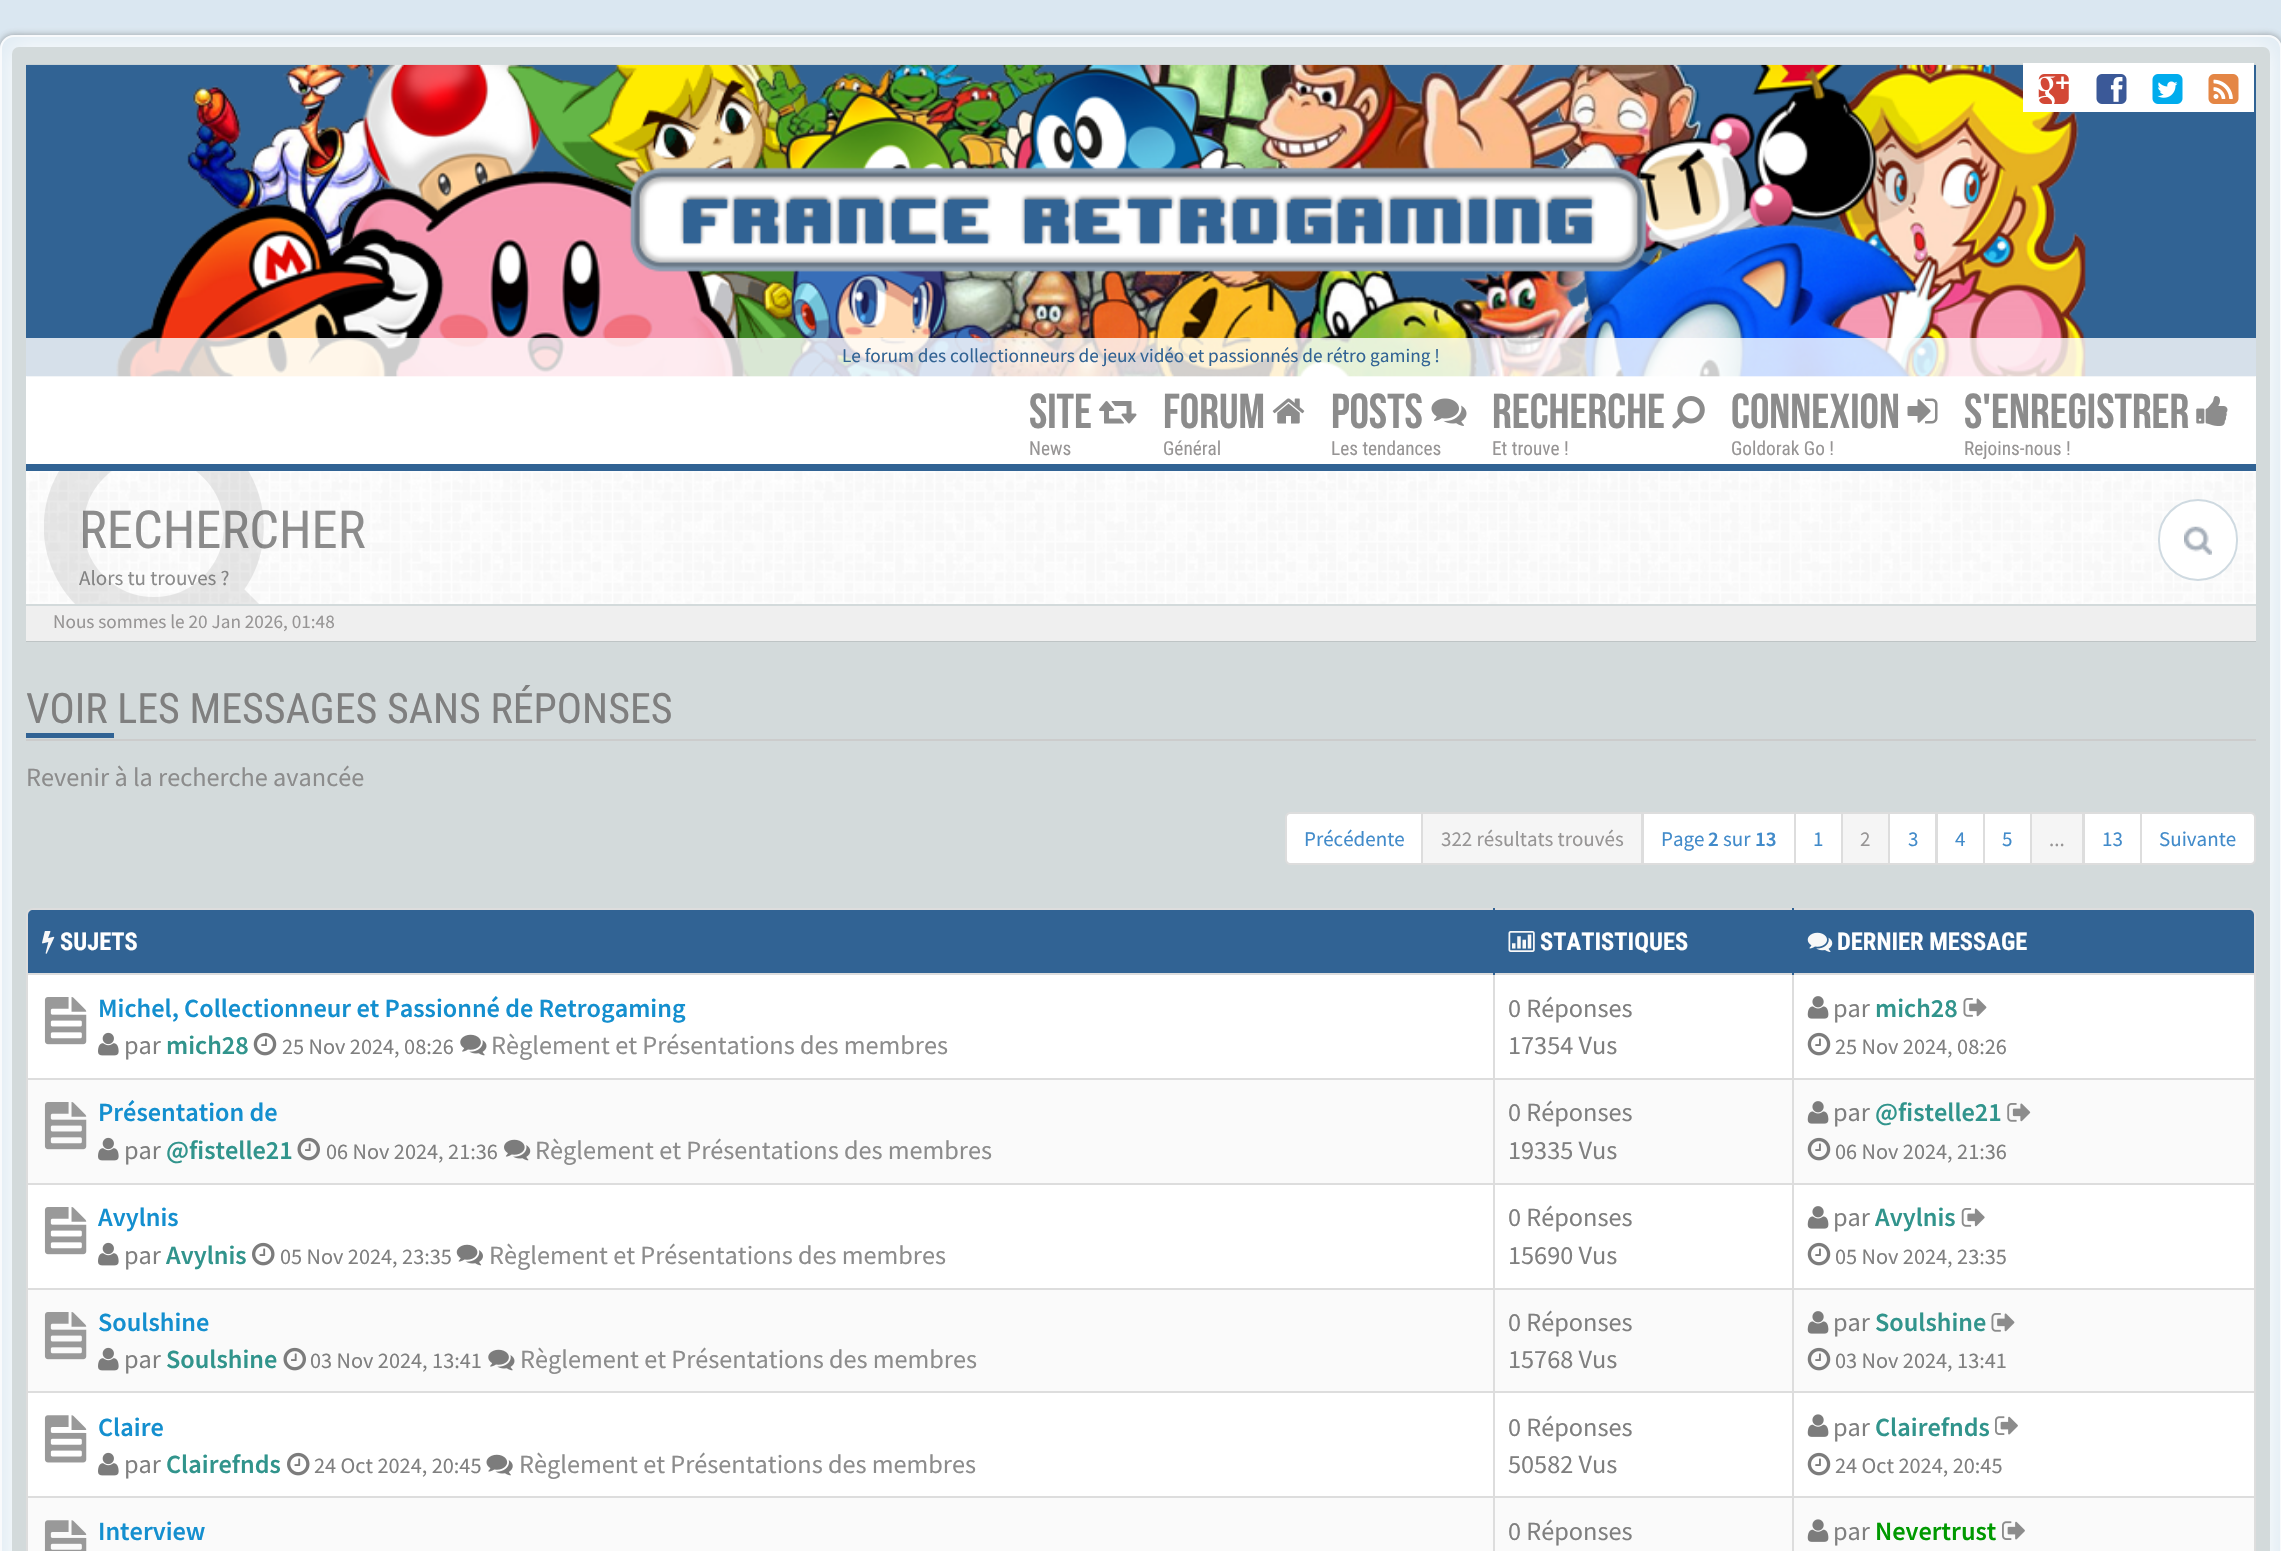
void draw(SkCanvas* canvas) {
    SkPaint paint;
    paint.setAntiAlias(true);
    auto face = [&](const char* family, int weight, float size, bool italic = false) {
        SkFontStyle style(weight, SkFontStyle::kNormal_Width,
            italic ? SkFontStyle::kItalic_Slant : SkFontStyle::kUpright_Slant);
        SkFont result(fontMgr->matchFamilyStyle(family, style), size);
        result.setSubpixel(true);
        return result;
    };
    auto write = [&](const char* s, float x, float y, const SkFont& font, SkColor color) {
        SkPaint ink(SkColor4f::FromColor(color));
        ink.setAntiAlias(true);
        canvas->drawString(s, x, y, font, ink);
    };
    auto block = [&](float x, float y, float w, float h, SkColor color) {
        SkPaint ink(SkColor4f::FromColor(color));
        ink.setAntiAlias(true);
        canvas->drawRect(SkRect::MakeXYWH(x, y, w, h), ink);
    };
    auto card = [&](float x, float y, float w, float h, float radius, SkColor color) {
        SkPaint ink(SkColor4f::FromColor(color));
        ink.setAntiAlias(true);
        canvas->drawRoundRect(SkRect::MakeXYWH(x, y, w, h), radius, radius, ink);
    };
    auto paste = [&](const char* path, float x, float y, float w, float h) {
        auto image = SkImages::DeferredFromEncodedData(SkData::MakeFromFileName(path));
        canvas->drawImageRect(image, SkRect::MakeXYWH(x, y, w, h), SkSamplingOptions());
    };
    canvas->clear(SkColorSetRGB(218, 231, 241));
    canvas->save();
    canvas->clipPath(SkPathBuilder(SkPathFillType::kEvenOdd).moveTo(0, 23).lineTo(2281, 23).lineTo(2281, 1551).lineTo(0, 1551).close().moveTo(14, 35).lineTo(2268, 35).cubicTo(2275.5f, 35, 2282, 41.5f, 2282, 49).lineTo(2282, 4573).cubicTo(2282, 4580.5f, 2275.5f, 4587, 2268, 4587).lineTo(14, 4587).cubicTo(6.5f, 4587, 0, 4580.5f, 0, 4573).lineTo(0, 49).cubicTo(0, 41.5f, 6.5f, 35, 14, 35).close().detach(), true);
    paint.setColor(SkColorSetARGB(128, 50, 50, 50));
    paint.setMaskFilter(SkMaskFilter::MakeBlur(kNormal_SkBlurStyle, 3.5f));
    canvas->drawRoundRect(SkRect::MakeXYWH(0, 35, 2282, 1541), 14, 14, paint);
    paint.setMaskFilter(nullptr);
    canvas->restore();
    card(0, 35, 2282, 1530, 14, SkColorSetARGB(51, 255, 255, 255));
    paint.setStyle(SkPaint::kStroke_Style);
    paint.setStrokeWidth(2);
    paint.setColor(SkColorSetARGB(191, 255, 255, 255));
    canvas->drawRoundRect(SkRect::MakeXYWH(1, 36, 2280, 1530), 13, 13, paint);
    paint.setStyle(SkPaint::kFill_Style);
    paint.setColor(SK_ColorWHITE);
    paint.setMaskFilter(SkMaskFilter::MakeBlur(kNormal_SkBlurStyle, 12));
    canvas->drawRoundRect(SkRect::MakeXYWH(12, 47, 2258, 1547), 7, 7, paint);
    paint.setMaskFilter(nullptr);
    card(12, 47, 2258, 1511, 7, SkColorSetRGB(211, 218, 219));
    block(26, 65, 2230, 311, SkColorSetRGB(49, 99, 148));
    block(26, 376, 2230, 88, SK_ColorWHITE);
    paste("pic5.png", 26, 64, 2230, 313);
    block(2023, 63, 231, 49, SK_ColorWHITE);
    paste("pic1.png", 2038, 74, 31, 30);
    paste("pic2.png", 2096, 74, 31, 30);
    paste("pic3.png", 2152, 74, 31, 30);
    paste("pic4.png", 2208, 74, 31, 30);
    block(26, 338, 2230, 38, SkColorSetARGB(204, 255, 255, 255));
    auto kFont1 = face("Source Sans Pro", 400, 19.25f);
    write("Le forum des collectionneurs de jeux vidéo et passionnés de rétro gaming !", 842, 362, kFont1, SkColorSetRGB(49, 99, 148));
    auto kFont2 = face("Bebas Neue", 400, 49);
    write("SITE", 1029, 428, kFont2, SkColorSetRGB(140, 140, 140));
    paste("pic6.png", 1099, 401, 38, 23);
    auto kFont3 = face("Roboto Condensed", 400, 19.25f);
    write("News", 1029, 455, kFont3, SkColorSetRGB(151, 149, 149));
    write("FORUM", 1163, 428, kFont2, SkColorSetRGB(140, 140, 140));
    paste("pic7.png", 1272, 398, 33, 26);
    write("Général", 1163, 455, kFont3, SkColorSetRGB(151, 149, 149));
    write("POSTS", 1331, 428, kFont2, SkColorSetRGB(140, 140, 140));
    paste("pic8.png", 1431, 398, 36, 28);
    write("Les tendances", 1331, 455, kFont3, SkColorSetRGB(151, 149, 149));
    write("RECHERCHE", 1492, 428, kFont2, SkColorSetRGB(140, 140, 140));
    paste("pic9.png", 1672, 396, 33, 33);
    write("Et trouve !", 1492, 455, kFont3, SkColorSetRGB(151, 149, 149));
    write("CONNEXION", 1731, 428, kFont2, SkColorSetRGB(140, 140, 140));
    paste("pic10.png", 1907, 398, 31, 26);
    write("Goldorak Go !", 1731, 455, kFont3, SkColorSetRGB(151, 149, 149));
    write("S'ENREGISTRER", 1964, 428, kFont2, SkColorSetRGB(140, 140, 140));
    paste("pic11.png", 2196, 396, 32, 30);
    write("Rejoins-nous !", 1964, 455, kFont3, SkColorSetRGB(151, 149, 149));
    block(26, 471, 2230, 133, SK_ColorWHITE);
    paste("pic12.png", 26, 471, 2230, 133);
    block(26, 464, 2230, 7, SkColorSetRGB(49, 99, 148));
    auto kFont4 = face("Roboto Condensed", 400, 52.5f);
    write("RECHERCHER", 79, 548, kFont4, SkColorSetRGB(140, 140, 140));
    auto kFont5 = face("Source Sans Pro", 400, 21);
    write("Alors tu trouves ?", 79, 585, kFont5, SkColorSetRGB(140, 140, 140));
    paste("pic13.png", 44, 471, 220, 133);
    card(2158, 499, 80, 82, 40, SK_ColorWHITE);
    paste("pic14.png", 2184, 526, 28, 29);
    paint.setStyle(SkPaint::kStroke_Style);
    paint.setColor(SkColorSetRGB(207, 218, 225));
    canvas->drawRoundRect(SkRect::MakeXYWH(2159, 500, 78, 80), 39, 39, paint);
    paint.setStyle(SkPaint::kFill_Style);
    paint.setColor(SkColorSetRGB(190, 196, 197));
    canvas->drawPath(SkPathBuilder().moveTo(26, 607).lineTo(26, 642).lineTo(2256, 642).lineTo(2256, 607).lineTo(2256, 640).lineTo(26, 640).close().detach(), paint);
    block(26, 606, 2230, 35, SkColorSetRGB(239, 239, 239));
    write("Nous sommes le 20 Jan 2026, 01:48", 53, 628, kFont1, SkColorSetRGB(151, 149, 149));
    block(26, 739, 2230, 2, SkColorSetRGB(204, 204, 204));
    auto kFont6 = face("Roboto Condensed", 400, 42);
    write("VOIR LES MESSAGES SANS RÉPONSES", 26, 723, kFont6, SkColorSetRGB(127, 127, 127));
    block(26, 733, 88, 5, SkColorSetRGB(49, 99, 148));
    auto kFont7 = face("Source Sans Pro", 400, 26.25f);
    write("Revenir à la recherche avancée", 26, 786, kFont7, SkColorSetRGB(140, 140, 140));
    paint.setColor(SK_ColorWHITE);
    canvas->drawPath(SkPathBuilder().moveTo(1290, 813).lineTo(1422, 813).lineTo(1422, 864).lineTo(1290, 864).cubicTo(1288, 864, 1286, 862, 1286, 860).lineTo(1286, 817).cubicTo(1286, 815, 1288, 813, 1290, 813).close().detach(), paint);
    paint.setStyle(SkPaint::kStroke_Style);
    paint.setColor(SkColorSetRGB(221, 221, 221));
    canvas->drawPath(SkPathBuilder().moveTo(1290, 813).lineTo(1422, 813).lineTo(1422, 864).lineTo(1290, 864).cubicTo(1288, 864, 1286, 862, 1286, 860).lineTo(1286, 817).cubicTo(1286, 815, 1288, 813, 1290, 813).close().detach(), paint);
    write("Précédente", 1304, 846, kFont5, SkColorSetRGB(66, 139, 202));
    paint.setStyle(SkPaint::kFill_Style);
    paint.setColor(SK_ColorWHITE);
    canvas->drawRect(SkRect::MakeXYWH(1643, 813, 152, 51), paint);
    paint.setStyle(SkPaint::kStroke_Style);
    paint.setColor(SkColorSetRGB(221, 221, 221));
    canvas->drawRect(SkRect::MakeXYWH(1643, 813, 152, 51), paint);
    paint.setStyle(SkPaint::kFill_Style);
    paint.setColor(SkColorSetRGB(245, 245, 245));
    canvas->drawRect(SkRect::MakeXYWH(1422, 813, 220, 51), paint);
    paint.setStyle(SkPaint::kStroke_Style);
    paint.setColor(SkColorSetRGB(221, 221, 221));
    canvas->drawRect(SkRect::MakeXYWH(1422, 813, 220, 51), paint);
    write("322 résultats trouvés", 1441, 846, kFont5, SkColorSetRGB(151, 149, 149));
    write("Page", 1661, 846, kFont5, SkColorSetRGB(66, 139, 202));
    auto kFont8 = face("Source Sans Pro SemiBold", 600, 21);
    write("2", 1708, 846, kFont8, SkColorSetRGB(66, 139, 202));
    write("sur", 1723, 846, kFont5, SkColorSetRGB(66, 139, 202));
    write("13", 1755, 846, kFont8, SkColorSetRGB(66, 139, 202));
    paint.setStyle(SkPaint::kFill_Style);
    paint.setColor(SK_ColorWHITE);
    canvas->drawRect(SkRect::MakeXYWH(1795, 813, 47, 51), paint);
    paint.setStyle(SkPaint::kStroke_Style);
    paint.setColor(SkColorSetRGB(221, 221, 221));
    canvas->drawRect(SkRect::MakeXYWH(1795, 813, 47, 51), paint);
    write("1", 1813, 846, kFont5, SkColorSetRGB(66, 139, 202));
    paint.setStyle(SkPaint::kFill_Style);
    paint.setColor(SK_ColorWHITE);
    canvas->drawRect(SkRect::MakeXYWH(1889, 813, 47, 51), paint);
    paint.setStyle(SkPaint::kStroke_Style);
    paint.setColor(SkColorSetRGB(221, 221, 221));
    canvas->drawRect(SkRect::MakeXYWH(1889, 813, 47, 51), paint);
    paint.setStyle(SkPaint::kFill_Style);
    paint.setColor(SkColorSetRGB(245, 245, 245));
    canvas->drawRect(SkRect::MakeXYWH(1842, 813, 47, 51), paint);
    paint.setStyle(SkPaint::kStroke_Style);
    paint.setColor(SkColorSetRGB(221, 221, 221));
    canvas->drawRect(SkRect::MakeXYWH(1842, 813, 47, 51), paint);
    write("2", 1860, 846, kFont5, SkColorSetRGB(151, 149, 149));
    write("3", 1908, 846, kFont5, SkColorSetRGB(66, 139, 202));
    paint.setStyle(SkPaint::kFill_Style);
    paint.setColor(SK_ColorWHITE);
    canvas->drawRect(SkRect::MakeXYWH(1937, 813, 47, 51), paint);
    paint.setStyle(SkPaint::kStroke_Style);
    paint.setColor(SkColorSetRGB(221, 221, 221));
    canvas->drawRect(SkRect::MakeXYWH(1937, 813, 47, 51), paint);
    write("4", 1955, 846, kFont5, SkColorSetRGB(66, 139, 202));
    paint.setStyle(SkPaint::kFill_Style);
    paint.setColor(SK_ColorWHITE);
    canvas->drawRect(SkRect::MakeXYWH(1984, 813, 47, 51), paint);
    paint.setStyle(SkPaint::kStroke_Style);
    paint.setColor(SkColorSetRGB(221, 221, 221));
    canvas->drawRect(SkRect::MakeXYWH(1984, 813, 47, 51), paint);
    write("5", 2002, 846, kFont5, SkColorSetRGB(66, 139, 202));
    paint.setStyle(SkPaint::kFill_Style);
    paint.setColor(SK_ColorWHITE);
    canvas->drawRect(SkRect::MakeXYWH(2084, 813, 57, 51), paint);
    paint.setStyle(SkPaint::kStroke_Style);
    paint.setColor(SkColorSetRGB(221, 221, 221));
    canvas->drawRect(SkRect::MakeXYWH(2084, 813, 57, 51), paint);
    paint.setStyle(SkPaint::kFill_Style);
    paint.setColor(SkColorSetRGB(245, 245, 245));
    canvas->drawRect(SkRect::MakeXYWH(2031, 813, 52, 51), paint);
    paint.setStyle(SkPaint::kStroke_Style);
    paint.setColor(SkColorSetRGB(221, 221, 221));
    canvas->drawRect(SkRect::MakeXYWH(2031, 813, 52, 51), paint);
    write("...", 2049, 846, kFont5, SkColorSetRGB(151, 149, 149));
    write("13", 2102, 846, kFont5, SkColorSetRGB(66, 139, 202));
    paint.setStyle(SkPaint::kFill_Style);
    paint.setColor(SK_ColorWHITE);
    canvas->drawPath(SkPathBuilder().moveTo(2141, 813).lineTo(2251, 813).cubicTo(2253, 813, 2255, 815, 2255, 817).lineTo(2255, 860).cubicTo(2255, 862, 2253, 864, 2251, 864).lineTo(2141, 864).close().detach(), paint);
    paint.setStyle(SkPaint::kStroke_Style);
    paint.setColor(SkColorSetRGB(221, 221, 221));
    canvas->drawPath(SkPathBuilder().moveTo(2141, 813).lineTo(2251, 813).cubicTo(2253, 813, 2255, 815, 2255, 817).lineTo(2255, 860).cubicTo(2255, 862, 2253, 864, 2251, 864).lineTo(2141, 864).close().detach(), paint);
    write("Suivante", 2159, 846, kFont5, SkColorSetRGB(66, 139, 202));
    canvas->drawRoundRect(SkRect::MakeXYWH(27, 909, 2228, 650), 6, 6, paint);
    card(28, 910, 2226, 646, 5, SK_ColorWHITE);
    paint.setStyle(SkPaint::kFill_Style);
    paint.setColor(SkColorSetRGB(49, 99, 148));
    canvas->drawPath(SkPathBuilder().moveTo(33, 910).lineTo(1493, 910).lineTo(1493, 973).lineTo(28, 973).lineTo(28, 915).cubicTo(28, 912, 30, 910, 33, 910).close().detach(), paint);
    paste("pic15.png", 42, 931, 13, 23);
    auto kFont9 = face("Roboto Condensed", 700, 24.5f);
    write("SUJETS", 60, 950, kFont9, SK_ColorWHITE);
    block(1495, 910, 297, 63, SkColorSetRGB(49, 99, 148));
    block(1792, 973, 464, 2, SkColorSetRGB(221, 221, 221));
    block(1792, 1078, 464, 2, SkColorSetRGB(221, 221, 221));
    block(1792, 1183, 464, 2, SkColorSetRGB(221, 221, 221));
    block(1792, 1288, 464, 2, SkColorSetRGB(221, 221, 221));
    block(1792, 1391, 464, 2, SkColorSetRGB(221, 221, 221));
    block(1792, 1496, 464, 2, SkColorSetRGB(221, 221, 221));
    block(1792, 1496, 2, 55, SkColorSetRGB(221, 221, 221));
    block(1493, 1496, 301, 2, SkColorSetRGB(221, 221, 221));
    block(1792, 1391, 2, 107, SkColorSetRGB(221, 221, 221));
    block(1493, 1391, 301, 2, SkColorSetRGB(221, 221, 221));
    block(1792, 1288, 2, 105, SkColorSetRGB(221, 221, 221));
    block(1493, 1288, 301, 2, SkColorSetRGB(221, 221, 221));
    block(1792, 1183, 2, 107, SkColorSetRGB(221, 221, 221));
    block(1493, 1183, 301, 2, SkColorSetRGB(221, 221, 221));
    block(1792, 1078, 2, 107, SkColorSetRGB(221, 221, 221));
    block(1493, 1078, 301, 2, SkColorSetRGB(221, 221, 221));
    block(1792, 973, 2, 107, SkColorSetRGB(221, 221, 221));
    block(1493, 973, 301, 2, SkColorSetRGB(221, 221, 221));
    block(1493, 1496, 2, 55, SkColorSetRGB(221, 221, 221));
    block(28, 1496, 1467, 2, SkColorSetRGB(221, 221, 221));
    block(1493, 1391, 2, 107, SkColorSetRGB(221, 221, 221));
    block(28, 1391, 1467, 2, SkColorSetRGB(221, 221, 221));
    block(1493, 1288, 2, 105, SkColorSetRGB(221, 221, 221));
    block(28, 1288, 1467, 2, SkColorSetRGB(221, 221, 221));
    block(1493, 1183, 2, 107, SkColorSetRGB(221, 221, 221));
    block(28, 1183, 1467, 2, SkColorSetRGB(221, 221, 221));
    block(1493, 1078, 2, 107, SkColorSetRGB(221, 221, 221));
    block(28, 1078, 1467, 2, SkColorSetRGB(221, 221, 221));
    block(1493, 973, 2, 107, SkColorSetRGB(221, 221, 221));
    block(28, 973, 1467, 2, SkColorSetRGB(221, 221, 221));
    block(1493, 908, 2, 67, SkColorSetRGB(49, 99, 148));
    paste("pic16.png", 1508, 931, 27, 21);
    write("STATISTIQUES", 1540, 950, kFont9, SK_ColorWHITE);
    canvas->drawPath(SkPathBuilder().moveTo(1792, 910).lineTo(2249, 910).cubicTo(2252, 910, 2254, 912, 2254, 915).lineTo(2254, 973).lineTo(1792, 973).close().detach(), paint);
    block(1792, 908, 2, 67, SkColorSetRGB(49, 99, 148));
    paste("pic17.png", 1807, 932, 26, 20);
    write("DERNIER MESSAGE", 1837, 950, kFont9, SK_ColorWHITE);
    paste("pic18.png", 44, 997, 43, 48);
    auto kFont10 = face("Source Sans Pro SemiBold", 600, 26.25f);
    write("Michel, Collectionneur et Passionné de Retrogaming", 98, 1017, kFont10, SkColorSetRGB(20, 143, 207));
    paste("pic19.png", 98, 1032, 21, 24);
    write("par", 124, 1054, kFont7, SkColorSetRGB(127, 127, 127));
    write("mich28", 166, 1054, kFont10, SkColorSetRGB(49, 148, 140));
    paste("pic20.png", 253, 1032, 24, 24);
    auto kFont11 = face("Source Sans Pro", 400, 22.25f);
    write("25 Nov 2024, 08:26", 282, 1054, kFont11, SkColorSetRGB(127, 127, 127));
    paste("pic21.png", 460, 1034, 27, 22);
    write("Règlement et Présentations des membres", 491, 1054, kFont7, SkColorSetRGB(140, 140, 140));
    write("0 Réponses", 1508, 1017, kFont7, SkColorSetRGB(127, 127, 127));
    write("17354 Vus", 1508, 1054, kFont7, SkColorSetRGB(127, 127, 127));
    paste("pic22.png", 1807, 996, 22, 23);
    write("par", 1833, 1017, kFont7, SkColorSetRGB(127, 127, 127));
    write("mich28", 1875, 1017, kFont10, SkColorSetRGB(49, 148, 140));
    paste("pic23.png", 1963, 998, 24, 19);
    paste("pic20.png", 1807, 1032, 24, 24);
    write("25 Nov 2024, 08:26", 1835, 1054, kFont11, SkColorSetRGB(127, 127, 127));
    block(28, 1080, 1465, 103, SkColorSetRGB(250, 250, 250));
    paste("pic24.png", 44, 1102, 43, 48);
    write("Présentation de", 98, 1121, kFont10, SkColorSetRGB(20, 143, 207));
    paste("pic25.png", 98, 1137, 21, 24);
    write("par", 124, 1159, kFont7, SkColorSetRGB(127, 127, 127));
    write("@fistelle21", 166, 1159, kFont10, SkColorSetRGB(49, 148, 140));
    paste("pic26.png", 297, 1137, 23, 24);
    write("06 Nov 2024, 21:36", 326, 1159, kFont11, SkColorSetRGB(127, 127, 127));
    paste("pic27.png", 504, 1139, 27, 22);
    write("Règlement et Présentations des membres", 535, 1159, kFont7, SkColorSetRGB(140, 140, 140));
    block(1495, 1080, 297, 103, SkColorSetRGB(250, 250, 250));
    write("0 Réponses", 1508, 1121, kFont7, SkColorSetRGB(127, 127, 127));
    write("19335 Vus", 1508, 1159, kFont7, SkColorSetRGB(127, 127, 127));
    block(1794, 1080, 460, 103, SkColorSetRGB(250, 250, 250));
    paste("pic28.png", 1807, 1101, 22, 23);
    write("par", 1833, 1121, kFont7, SkColorSetRGB(127, 127, 127));
    write("@fistelle21", 1875, 1121, kFont10, SkColorSetRGB(49, 148, 140));
    paste("pic29.png", 2007, 1103, 24, 19);
    paste("pic30.png", 1807, 1137, 24, 24);
    write("06 Nov 2024, 21:36", 1835, 1159, kFont11, SkColorSetRGB(127, 127, 127));
    paste("pic18.png", 44, 1207, 43, 48);
    write("Avylnis", 98, 1226, kFont10, SkColorSetRGB(20, 143, 207));
    paste("pic19.png", 98, 1242, 21, 24);
    write("par", 124, 1264, kFont7, SkColorSetRGB(127, 127, 127));
    write("Avylnis", 166, 1264, kFont10, SkColorSetRGB(49, 148, 140));
    paste("pic31.png", 252, 1242, 23, 24);
    write("05 Nov 2024, 23:35", 280, 1264, kFont11, SkColorSetRGB(127, 127, 127));
    paste("pic32.png", 456, 1244, 27, 22);
    write("Règlement et Présentations des membres", 489, 1264, kFont7, SkColorSetRGB(140, 140, 140));
    write("0 Réponses", 1508, 1226, kFont7, SkColorSetRGB(127, 127, 127));
    write("15690 Vus", 1508, 1264, kFont7, SkColorSetRGB(127, 127, 127));
    paste("pic22.png", 1807, 1206, 22, 23);
    write("par", 1833, 1226, kFont7, SkColorSetRGB(127, 127, 127));
    write("Avylnis", 1875, 1226, kFont10, SkColorSetRGB(49, 148, 140));
    paste("pic33.png", 1961, 1208, 24, 19);
    paste("pic20.png", 1807, 1242, 24, 24);
    write("05 Nov 2024, 23:35", 1835, 1264, kFont11, SkColorSetRGB(127, 127, 127));
    block(28, 1290, 1465, 101, SkColorSetRGB(250, 250, 250));
    paste("pic24.png", 44, 1312, 43, 48);
    write("Soulshine", 98, 1331, kFont10, SkColorSetRGB(20, 143, 207));
    paste("pic25.png", 98, 1347, 21, 24);
    write("par", 124, 1368, kFont7, SkColorSetRGB(127, 127, 127));
    write("Soulshine", 166, 1368, kFont10, SkColorSetRGB(49, 148, 140));
    paste("pic26.png", 283, 1347, 23, 24);
    write("03 Nov 2024, 13:41", 310, 1368, kFont11, SkColorSetRGB(127, 127, 127));
    paste("pic34.png", 488, 1349, 27, 22);
    write("Règlement et Présentations des membres", 520, 1368, kFont7, SkColorSetRGB(140, 140, 140));
    block(1495, 1290, 297, 101, SkColorSetRGB(250, 250, 250));
    write("0 Réponses", 1508, 1331, kFont7, SkColorSetRGB(127, 127, 127));
    write("15768 Vus", 1508, 1368, kFont7, SkColorSetRGB(127, 127, 127));
    block(1794, 1290, 460, 101, SkColorSetRGB(250, 250, 250));
    paste("pic28.png", 1807, 1311, 22, 23);
    write("par", 1833, 1331, kFont7, SkColorSetRGB(127, 127, 127));
    write("Soulshine", 1875, 1331, kFont10, SkColorSetRGB(49, 148, 140));
    paste("pic35.png", 1991, 1313, 24, 19);
    paste("pic30.png", 1807, 1347, 24, 24);
    write("03 Nov 2024, 13:41", 1835, 1368, kFont11, SkColorSetRGB(127, 127, 127));
    paste("pic36.png", 44, 1415, 43, 48);
    write("Claire", 98, 1436, kFont10, SkColorSetRGB(20, 143, 207));
    paste("pic19.png", 98, 1452, 21, 24);
    write("par", 124, 1473, kFont7, SkColorSetRGB(127, 127, 127));
    write("Clairefnds", 166, 1473, kFont10, SkColorSetRGB(49, 148, 140));
    paste("pic31.png", 287, 1452, 23, 24);
    write("24 Oct 2024, 20:45", 314, 1473, kFont11, SkColorSetRGB(127, 127, 127));
    paste("pic37.png", 486, 1454, 27, 22);
    write("Règlement et Présentations des membres", 519, 1473, kFont7, SkColorSetRGB(140, 140, 140));
    write("0 Réponses", 1508, 1436, kFont7, SkColorSetRGB(127, 127, 127));
    write("50582 Vus", 1508, 1473, kFont7, SkColorSetRGB(127, 127, 127));
    paste("pic38.png", 1807, 1414, 22, 23);
    write("par", 1833, 1436, kFont7, SkColorSetRGB(127, 127, 127));
    write("Clairefnds", 1875, 1436, kFont10, SkColorSetRGB(49, 148, 140));
    paste("pic39.png", 1995, 1416, 23, 19);
    paste("pic20.png", 1807, 1452, 24, 24);
    write("24 Oct 2024, 20:45", 1835, 1473, kFont11, SkColorSetRGB(127, 127, 127));
    block(28, 1498, 1465, 53, SkColorSetRGB(250, 250, 250));
    paste("pic40.png", 44, 1520, 43, 31);
    write("Interview", 98, 1540, kFont10, SkColorSetRGB(20, 143, 207));
    block(1495, 1498, 297, 53, SkColorSetRGB(250, 250, 250));
    write("0 Réponses", 1508, 1540, kFont7, SkColorSetRGB(127, 127, 127));
    block(1794, 1498, 460, 53, SkColorSetRGB(250, 250, 250));
    paste("pic41.png", 1807, 1519, 22, 23);
    write("par", 1833, 1540, kFont7, SkColorSetRGB(127, 127, 127));
    write("Nevertrust", 1875, 1540, kFont10, SkColorSetRGB(0, 153, 0));
    paste("pic42.png", 2002, 1521, 23, 19);
}
